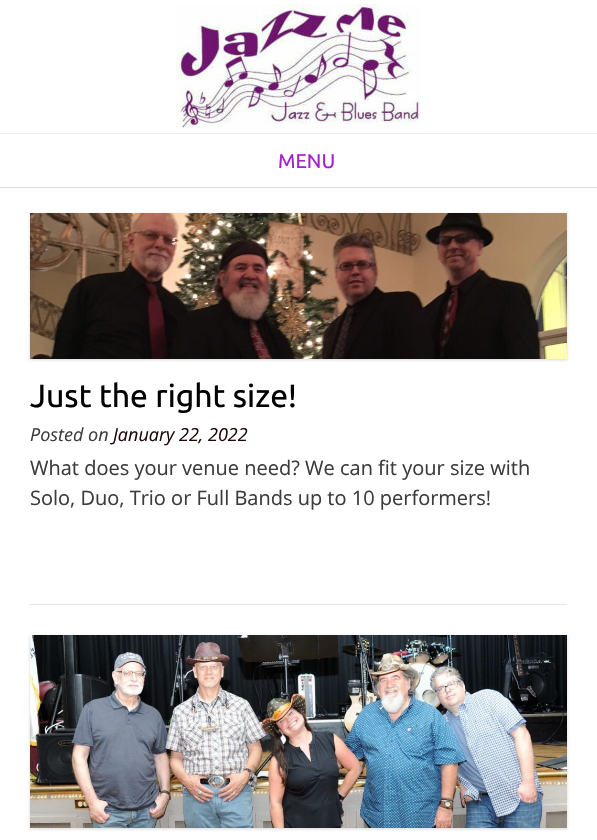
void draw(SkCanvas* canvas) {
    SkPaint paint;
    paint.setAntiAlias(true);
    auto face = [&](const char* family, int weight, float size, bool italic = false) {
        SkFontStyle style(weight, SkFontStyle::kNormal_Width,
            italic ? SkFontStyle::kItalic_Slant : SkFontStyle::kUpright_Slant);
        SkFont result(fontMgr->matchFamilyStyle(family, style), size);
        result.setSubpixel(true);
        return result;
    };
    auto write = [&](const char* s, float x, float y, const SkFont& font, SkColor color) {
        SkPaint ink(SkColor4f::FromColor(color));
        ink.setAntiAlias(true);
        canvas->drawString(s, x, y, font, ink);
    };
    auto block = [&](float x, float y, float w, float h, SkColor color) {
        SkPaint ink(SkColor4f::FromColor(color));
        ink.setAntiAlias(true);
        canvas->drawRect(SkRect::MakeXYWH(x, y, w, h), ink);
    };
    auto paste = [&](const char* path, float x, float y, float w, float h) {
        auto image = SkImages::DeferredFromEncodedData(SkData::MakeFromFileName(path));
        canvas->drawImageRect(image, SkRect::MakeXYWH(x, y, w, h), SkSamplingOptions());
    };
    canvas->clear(SK_ColorWHITE);
    block(0, 187, 597, 1, SkColorSetRGB(219, 219, 219));
    paste("pic1.png", 176, 4, 245, 125);
    block(0, 133, 597, 1, SkColorSetRGB(235, 235, 235));
    auto kFont1 = face("Ubuntu", 400, 20);
    write("MENU", 278, 168, kFont1, SkColorSetRGB(163, 33, 206));
    block(30, 604, 537, 1, SkColorSetRGB(230, 230, 230));
    paint.setColor(SkColorSetARGB(38, 0, 0, 0));
    paint.setMaskFilter(SkMaskFilter::MakeBlur(kNormal_SkBlurStyle, 1.5f));
    canvas->drawRect(SkRect::MakeXYWH(30, 214, 537, 146), paint);
    paint.setMaskFilter(nullptr);
    paste("pic2.png", 30, 213, 537, 146);
    auto kFont2 = face("Ubuntu", 400, 32);
    write("Just the right size!", 30, 407, kFont2, SK_ColorBLACK);
    auto kFont3 = face("Open Sans", 400, 18, true);
    write("Posted on", 30, 441, kFont3, SkColorSetRGB(60, 60, 60));
    write("January 22, 2022", 113, 441, kFont3, SkColorSetRGB(30, 9, 9));
    auto kFont4 = face("Open Sans", 400, 20);
    write("What does your venue need? We can fit your size with", 30, 475, kFont4, SkColorSetRGB(60, 60, 60));
    write("Solo, Duo, Trio or Full Bands up to 10 performers!", 30, 505, kFont4, SkColorSetRGB(60, 60, 60));
    paint.setMaskFilter(SkMaskFilter::MakeBlur(kNormal_SkBlurStyle, 1.5f));
    canvas->drawRect(SkRect::MakeXYWH(30, 636, 537, 193), paint);
    paint.setMaskFilter(nullptr);
    paste("pic3.png", 30, 635, 537, 193);
}
